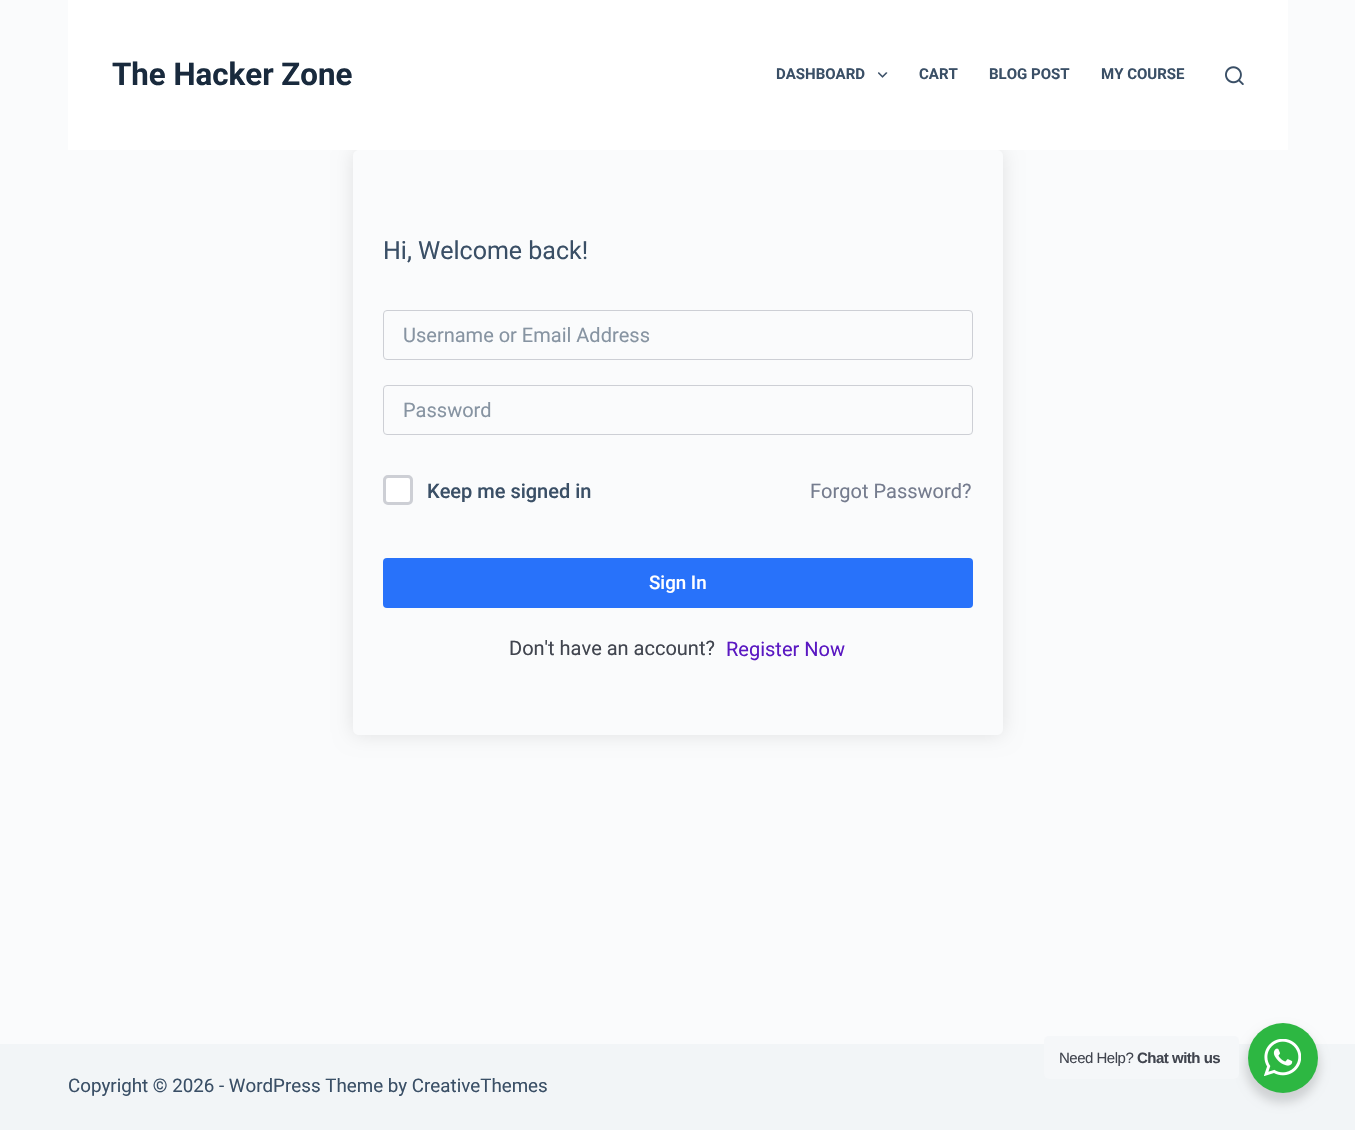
void draw(SkCanvas* canvas) {
    SkPaint paint;
    paint.setAntiAlias(true);
    auto face = [&](const char* family, int weight, float size, bool italic = false) {
        SkFontStyle style(weight, SkFontStyle::kNormal_Width,
            italic ? SkFontStyle::kItalic_Slant : SkFontStyle::kUpright_Slant);
        SkFont result(fontMgr->matchFamilyStyle(family, style), size);
        result.setSubpixel(true);
        return result;
    };
    auto write = [&](const char* s, float x, float y, const SkFont& font, SkColor color) {
        SkPaint ink(SkColor4f::FromColor(color));
        ink.setAntiAlias(true);
        canvas->drawString(s, x, y, font, ink);
    };
    auto writeSpaced = [&](const char* s, float x, float y, const SkFont& font, const SkPaint& ink, float letter, float word) {
        std::vector<SkGlyphID> glyphs(font.countText(s, strlen(s), SkTextEncoding::kUTF8));
        std::vector<float> xs(glyphs.size());
        font.textToGlyphs(s, strlen(s), SkTextEncoding::kUTF8, glyphs);
        font.getXPos(glyphs, xs, x);
        float extra = 0;
        for (size_t i = 0; i < glyphs.size(); i++) {
            xs[i] += extra;
            extra += letter + word * (glyphs[i] == font.unicharToGlyph(' '));
        }
        canvas->drawTextBlob(SkTextBlob::MakeFromPosHGlyphs(glyphs, xs, y, font), 0, 0, ink);
    };
    auto block = [&](float x, float y, float w, float h, SkColor color) {
        SkPaint ink(SkColor4f::FromColor(color));
        ink.setAntiAlias(true);
        canvas->drawRect(SkRect::MakeXYWH(x, y, w, h), ink);
    };
    auto card = [&](float x, float y, float w, float h, float radius, SkColor color) {
        SkPaint ink(SkColor4f::FromColor(color));
        ink.setAntiAlias(true);
        canvas->drawRoundRect(SkRect::MakeXYWH(x, y, w, h), radius, radius, ink);
    };
    auto paste = [&](const char* path, float x, float y, float w, float h) {
        auto image = SkImages::DeferredFromEncodedData(SkData::MakeFromFileName(path));
        canvas->drawImageRect(image, SkRect::MakeXYWH(x, y, w, h), SkSamplingOptions());
    };
    canvas->clear(SkColorSetRGB(250, 251, 252));
    canvas->save();
    canvas->clipPath(SkPathBuilder(SkPathFillType::kEvenOdd).moveTo(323, 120).lineTo(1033, 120).lineTo(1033, 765).lineTo(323, 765).close().moveTo(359, 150).lineTo(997, 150).cubicTo(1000.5f, 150, 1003, 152.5f, 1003, 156).lineTo(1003, 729).cubicTo(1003, 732.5f, 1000.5f, 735, 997, 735).lineTo(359, 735).cubicTo(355.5f, 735, 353, 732.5f, 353, 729).lineTo(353, 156).cubicTo(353, 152.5f, 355.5f, 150, 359, 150).close().detach(), true);
    paint.setColor(SkColorSetARGB(26, 0, 0, 0));
    paint.setMaskFilter(SkMaskFilter::MakeBlur(kNormal_SkBlurStyle, 9.5f));
    canvas->drawRoundRect(SkRect::MakeXYWH(353, 150, 650, 585), 6, 6, paint);
    paint.setMaskFilter(nullptr);
    canvas->restore();
    block(68, 0, 1220, 150, SK_ColorWHITE);
    auto kFont1 = face("Roboto", 700, 31.25f);
    write("The Hacker Zone", 112, 85, kFont1, SkColorSetRGB(25, 42, 61));
    auto kFont2 = face("Roboto", 700, 15);
    write("DASHBOARD", 776, 79, kFont2, SkColorSetRGB(58, 79, 102));
    paste("pic1.png", 878, 72, 10, 6);
    write("CART", 919, 79, kFont2, SkColorSetRGB(58, 79, 102));
    write("BLOG POST", 989, 79, kFont2, SkColorSetRGB(58, 79, 102));
    write("MY COURSE", 1101, 79, kFont2, SkColorSetRGB(58, 79, 102));
    paste("pic2.png", 1225, 66, 19, 19);
    auto kFont3 = face("Roboto", 400, 25);
    write("Hi, Welcome back!", 383, 259, kFont3, SkColorSetRGB(58, 79, 102));
    paint.setStyle(SkPaint::kStroke_Style);
    paint.setStrokeWidth(1);
    paint.setColor(SkColorSetRGB(205, 207, 213));
    canvas->drawRoundRect(SkRect::MakeXYWH(383.5f, 310.5f, 589, 49), 3.5f, 3.5f, paint);
    auto kFont4 = face("Roboto", 400, 20);
    write("Username or Email Address", 403, 342, kFont4, SkColorSetRGB(135, 148, 162));
    canvas->drawRoundRect(SkRect::MakeXYWH(383.5f, 385.5f, 589, 49), 3.5f, 3.5f, paint);
    write("Password", 403, 417, kFont4, SkColorSetRGB(135, 148, 162));
    paint.setStyle(SkPaint::kFill_Style);
    paint.setColor(SK_ColorWHITE);
    canvas->drawRoundRect(SkRect::MakeXYWH(384.5f, 476.5f, 27, 27), 3.5f, 3.5f, paint);
    paint.setStyle(SkPaint::kStroke_Style);
    paint.setStrokeWidth(3);
    paint.setColor(SkColorSetRGB(205, 207, 213));
    canvas->drawRoundRect(SkRect::MakeXYWH(384.5f, 476.5f, 27, 27), 3.5f, 3.5f, paint);
    auto kFont5 = face("Roboto", 500, 20);
    write("Keep me signed in", 427, 498, kFont5, SkColorSetRGB(58, 79, 102));
    write("Forgot Password?", 810, 498, kFont4, SkColorSetRGB(117, 124, 142));
    card(383, 558, 590, 50, 4, SkColorSetRGB(40, 114, 250));
    auto kFont6 = face("Roboto", 500, 18.75f);
    write("Sign In", 649, 589, kFont6, SK_ColorWHITE);
    write("Don't have an account?", 509, 655, kFont4, SkColorSetRGB(65, 69, 79));
    write("Register Now", 726, 656, kFont4, SkColorSetRGB(90, 24, 194));
    block(0, 1044, 1355, 86, SkColorSetRGB(242, 245, 247));
    auto kFont7 = face("Roboto", 400, 18.75f);
    write("Copyright © 2026 - WordPress Theme by CreativeThemes", 68, 1092, kFont7, SkColorSetRGB(58, 79, 102));
    paint.setStyle(SkPaint::kFill_Style);
    paint.setColor(SkColorSetARGB(36, 0, 0, 0));
    paint.setMaskFilter(SkMaskFilter::MakeBlur(kNormal_SkBlurStyle, 5));
    canvas->drawRoundRect(SkRect::MakeXYWH(1245, 1028, 75, 75), 37.5f, 37.5f, paint);
    paint.setMaskFilter(nullptr);
    card(1044, 1036, 195, 43, 5, SkColorSetRGB(245, 247, 249));
    auto kFont8 = face("Liberation Sans", 400, 15);
    paint.setColor(SkColorSetRGB(65, 69, 79));
    writeSpaced("Need Help?", 1059, 1063, kFont8, paint, -0.5f, 0);
    auto kFont9 = face("Liberation Sans", 700, 15);
    writeSpaced("Chat with us", 1137, 1063, kFont9, paint, -0.5f, 0);
    paint.setColor(SkColorSetRGB(45, 183, 66));
    canvas->drawCircle(1283, 1058, 35, paint);
    paste("pic3.png", 1264, 1039, 37, 37);
}
